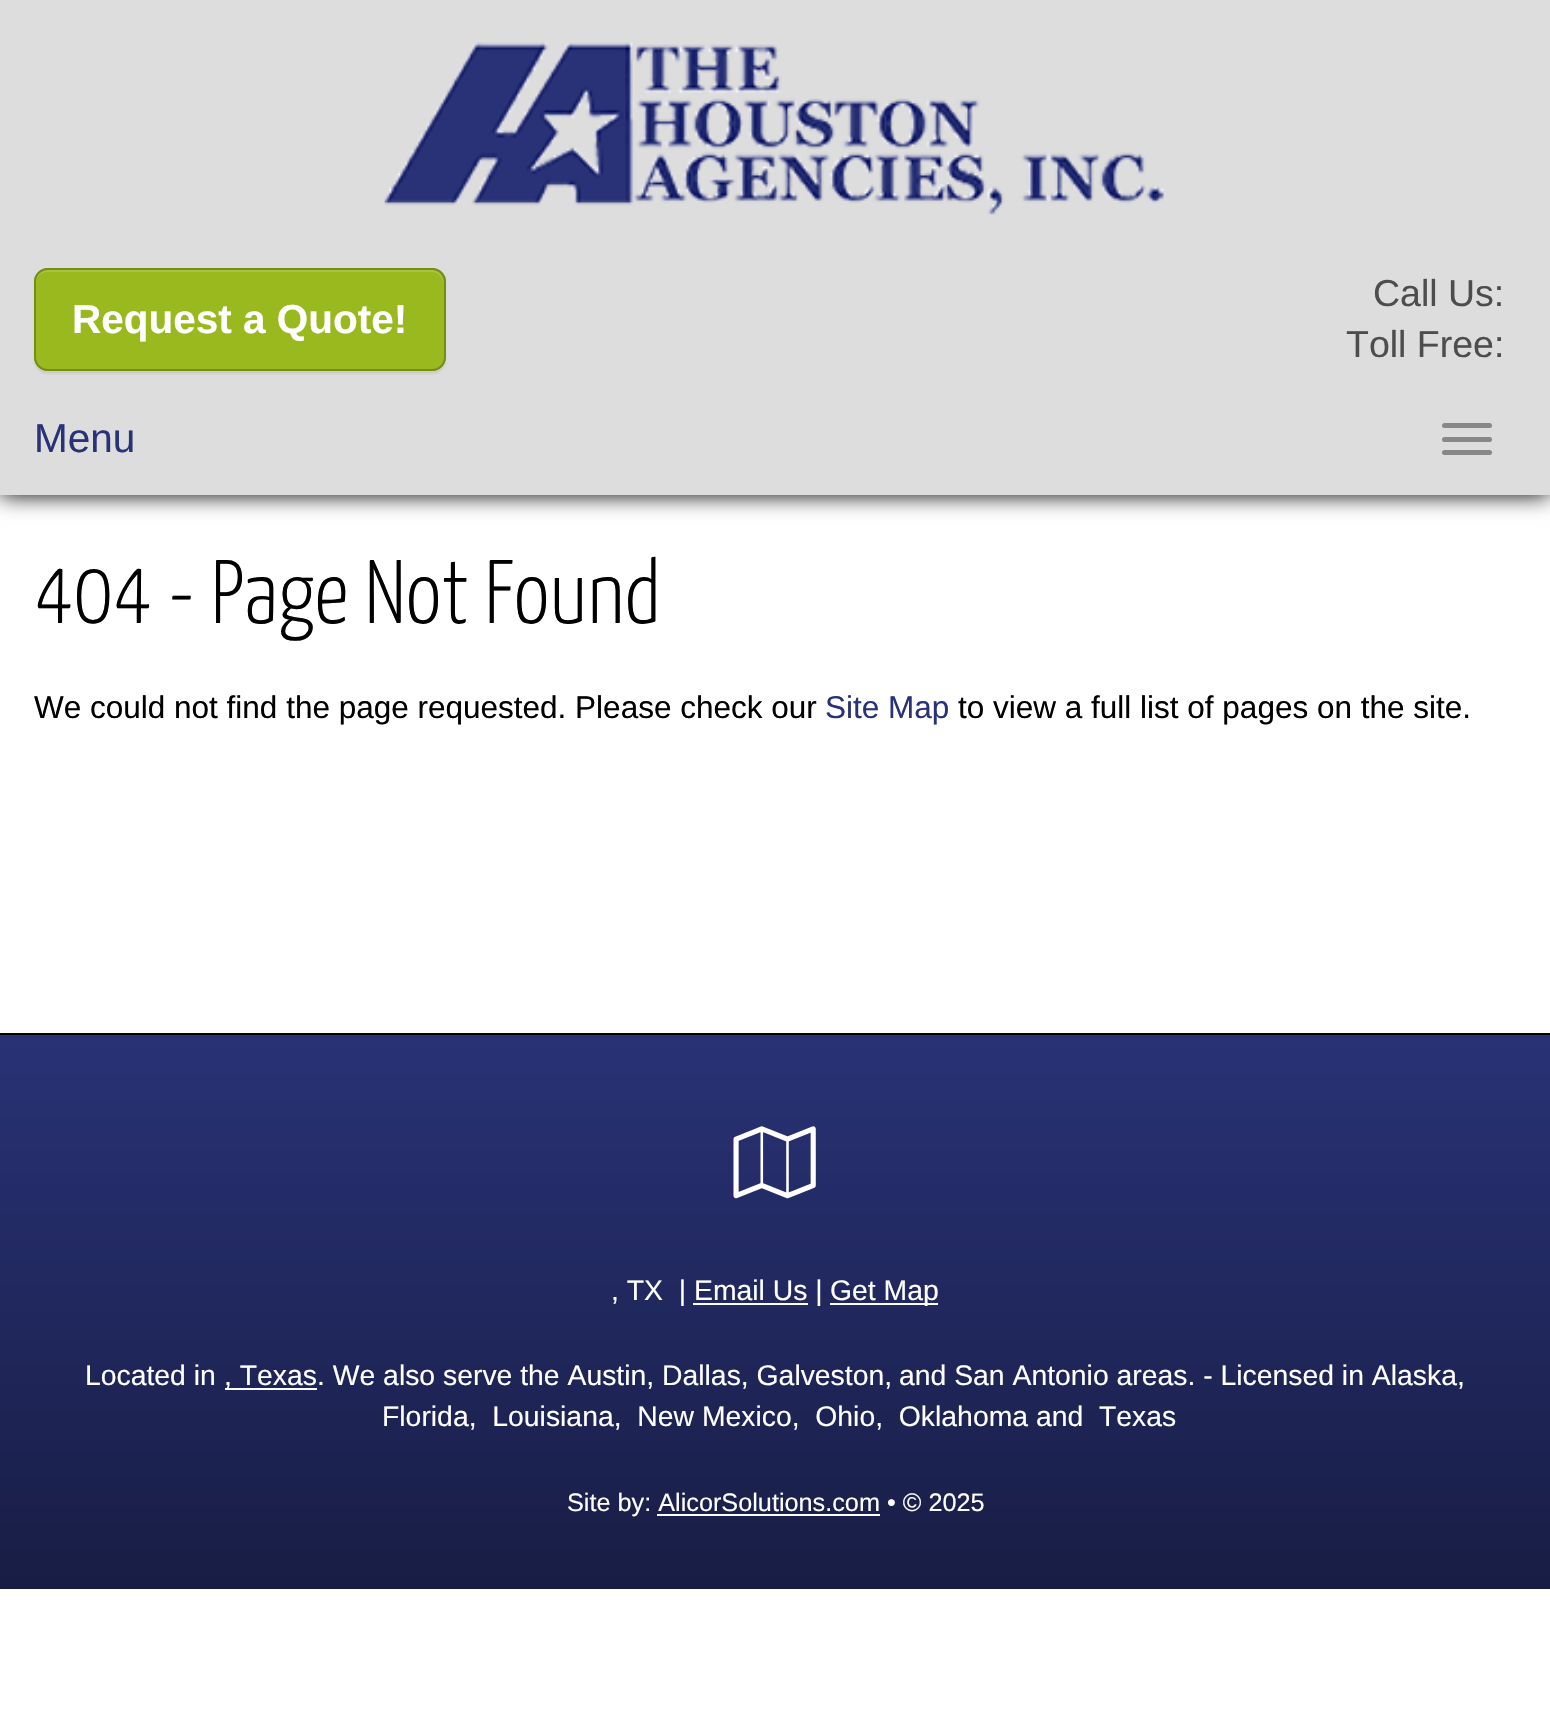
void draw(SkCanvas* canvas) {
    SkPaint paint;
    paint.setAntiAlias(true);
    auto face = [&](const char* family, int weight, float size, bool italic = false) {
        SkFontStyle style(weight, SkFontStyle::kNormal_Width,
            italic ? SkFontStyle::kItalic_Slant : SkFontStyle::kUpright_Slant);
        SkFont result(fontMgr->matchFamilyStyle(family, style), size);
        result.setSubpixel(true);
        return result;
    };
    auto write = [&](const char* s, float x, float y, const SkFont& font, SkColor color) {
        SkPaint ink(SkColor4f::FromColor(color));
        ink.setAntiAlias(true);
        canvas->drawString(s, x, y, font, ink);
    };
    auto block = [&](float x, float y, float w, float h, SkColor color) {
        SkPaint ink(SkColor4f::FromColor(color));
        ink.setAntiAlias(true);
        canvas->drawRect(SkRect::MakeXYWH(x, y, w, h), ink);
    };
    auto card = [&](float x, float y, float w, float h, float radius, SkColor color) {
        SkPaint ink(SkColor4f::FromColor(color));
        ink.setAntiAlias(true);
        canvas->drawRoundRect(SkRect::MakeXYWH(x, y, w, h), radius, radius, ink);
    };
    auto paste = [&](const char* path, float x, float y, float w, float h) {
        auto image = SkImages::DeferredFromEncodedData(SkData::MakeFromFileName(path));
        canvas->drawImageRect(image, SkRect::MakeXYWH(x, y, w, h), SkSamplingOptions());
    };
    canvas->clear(SK_ColorWHITE);
    paint.setColor(SK_ColorBLACK);
    paint.setMaskFilter(SkMaskFilter::MakeBlur(kNormal_SkBlurStyle, 11));
    canvas->drawRect(SkRect::MakeXYWH(0, 0, 1550, 495), paint);
    paint.setMaskFilter(nullptr);
    block(0, 0, 1550, 495, SkColorSetRGB(221, 221, 221));
    paste("pic1.png", 384, 42, 780, 173);
    paint.setColor(SkColorSetARGB(18, 0, 0, 0));
    paint.setMaskFilter(SkMaskFilter::MakeBlur(kNormal_SkBlurStyle, 1));
    canvas->drawRoundRect(SkRect::MakeXYWH(34, 270, 412, 104), 14, 14, paint);
    paint.setMaskFilter(nullptr);
    card(34, 268, 412, 103, 14, SkColorSetRGB(153, 185, 30));
    paint.setColor(SkColorSetRGB(168, 196, 64));
    canvas->drawPath(SkPathBuilder().moveTo(47, 272).lineTo(432, 272).cubicTo(438, 272, 443, 277, 443, 284).lineTo(443, 281).cubicTo(443, 275, 438, 270, 432, 270).lineTo(47, 270).cubicTo(41, 270, 36, 275, 36, 281).lineTo(36, 284).cubicTo(36, 277, 41, 272, 47, 272).close().detach(), paint);
    paint.setStyle(SkPaint::kStroke_Style);
    paint.setStrokeWidth(2);
    paint.setColor(SkColorSetRGB(117, 141, 23));
    canvas->drawRoundRect(SkRect::MakeXYWH(35, 269, 410, 101), 13, 13, paint);
    auto kFont1 = face("Liberation Sans", 700, 40.5f);
    write("Request a Quote!", 72, 333, kFont1, SK_ColorWHITE);
    auto kFont2 = face("Liberation Sans", 400, 37.5f);
    write("Call Us:", 1373, 306, kFont2, SkColorSetRGB(77, 77, 77));
    write("Toll Free:", 1346, 357, kFont2, SkColorSetRGB(77, 77, 77));
    auto kFont3 = face("Liberation Sans", 400, 40.5f);
    write("Menu", 34, 452, kFont3, SkColorSetRGB(41, 50, 118));
    card(1442, 423, 50, 5, 2.5f, SkColorSetRGB(136, 136, 136));
    card(1442, 437, 50, 5, 2.5f, SkColorSetRGB(136, 136, 136));
    card(1442, 450, 50, 5, 2.5f, SkColorSetRGB(136, 136, 136));
    auto kFont4 = face("Yanone Kaffeesatz", 300, 90);
    write("404 - Page Not Found", 34, 623, kFont4, SK_ColorBLACK);
    auto kFont5 = face("Liberation Sans", 400, 31.5f);
    write("We could not find the page requested. Please check our", 34, 718, kFont5, SK_ColorBLACK);
    write("Site Map", 825, 718, kFont5, SkColorSetRGB(41, 50, 118));
    write("to view a full list of pages on the site.", 958, 718, kFont5, SK_ColorBLACK);
    paint.setStyle(SkPaint::kFill_Style);
    {
        const SkColor colors[] = {SkColorSetRGB(41, 50, 118), SkColorSetRGB(24, 29, 68)};
        const float stops[] = {0, 1};
        const SkPoint ends[] = {{775, 1035}, {775, 1589}};
        paint.setShader(SkGradientShader::MakeLinear(ends, colors, stops, 2, SkTileMode::kClamp));
        paint.setAlpha(255);
    }
    canvas->drawRect(SkRect::MakeXYWH(0, 1035, 1550, 554), paint);
    block(0, 1033, 1550, 2, SK_ColorBLACK);
    paste("pic2.png", 733, 1126, 83, 73);
    auto kFont6 = face("Liberation Sans", 400, 28.35f);
    write(", TX  | Email Us |", 611, 1300, kFont6, SK_ColorWHITE);
    block(830, 1303, 108, 2, SK_ColorWHITE);
    write("Get Map", 830, 1300, kFont6, SK_ColorWHITE);
    block(693, 1303, 115, 2, SK_ColorWHITE);
    write("Located in", 85, 1385, kFont6, SK_ColorWHITE);
    block(225, 1388, 92, 2, SK_ColorWHITE);
    write(", Texas. We also serve the Austin, Dallas, Galveston,", 224, 1385, kFont6, SK_ColorWHITE);
    write("and San Antonio areas. - Licensed in Alaska,", 899, 1385, kFont6, SK_ColorWHITE);
    write("Florida,  Louisiana,  New Mexico,  Ohio,  Oklahoma and  Texas", 382, 1426, kFont6, SK_ColorWHITE);
    auto kFont7 = face("Liberation Sans", 400, 25.25f);
    write("Site by: AlicorSolutions.com • © 2025", 567, 1511, kFont7, SK_ColorWHITE);
    block(657, 1514, 223, 2, SK_ColorWHITE);
}
